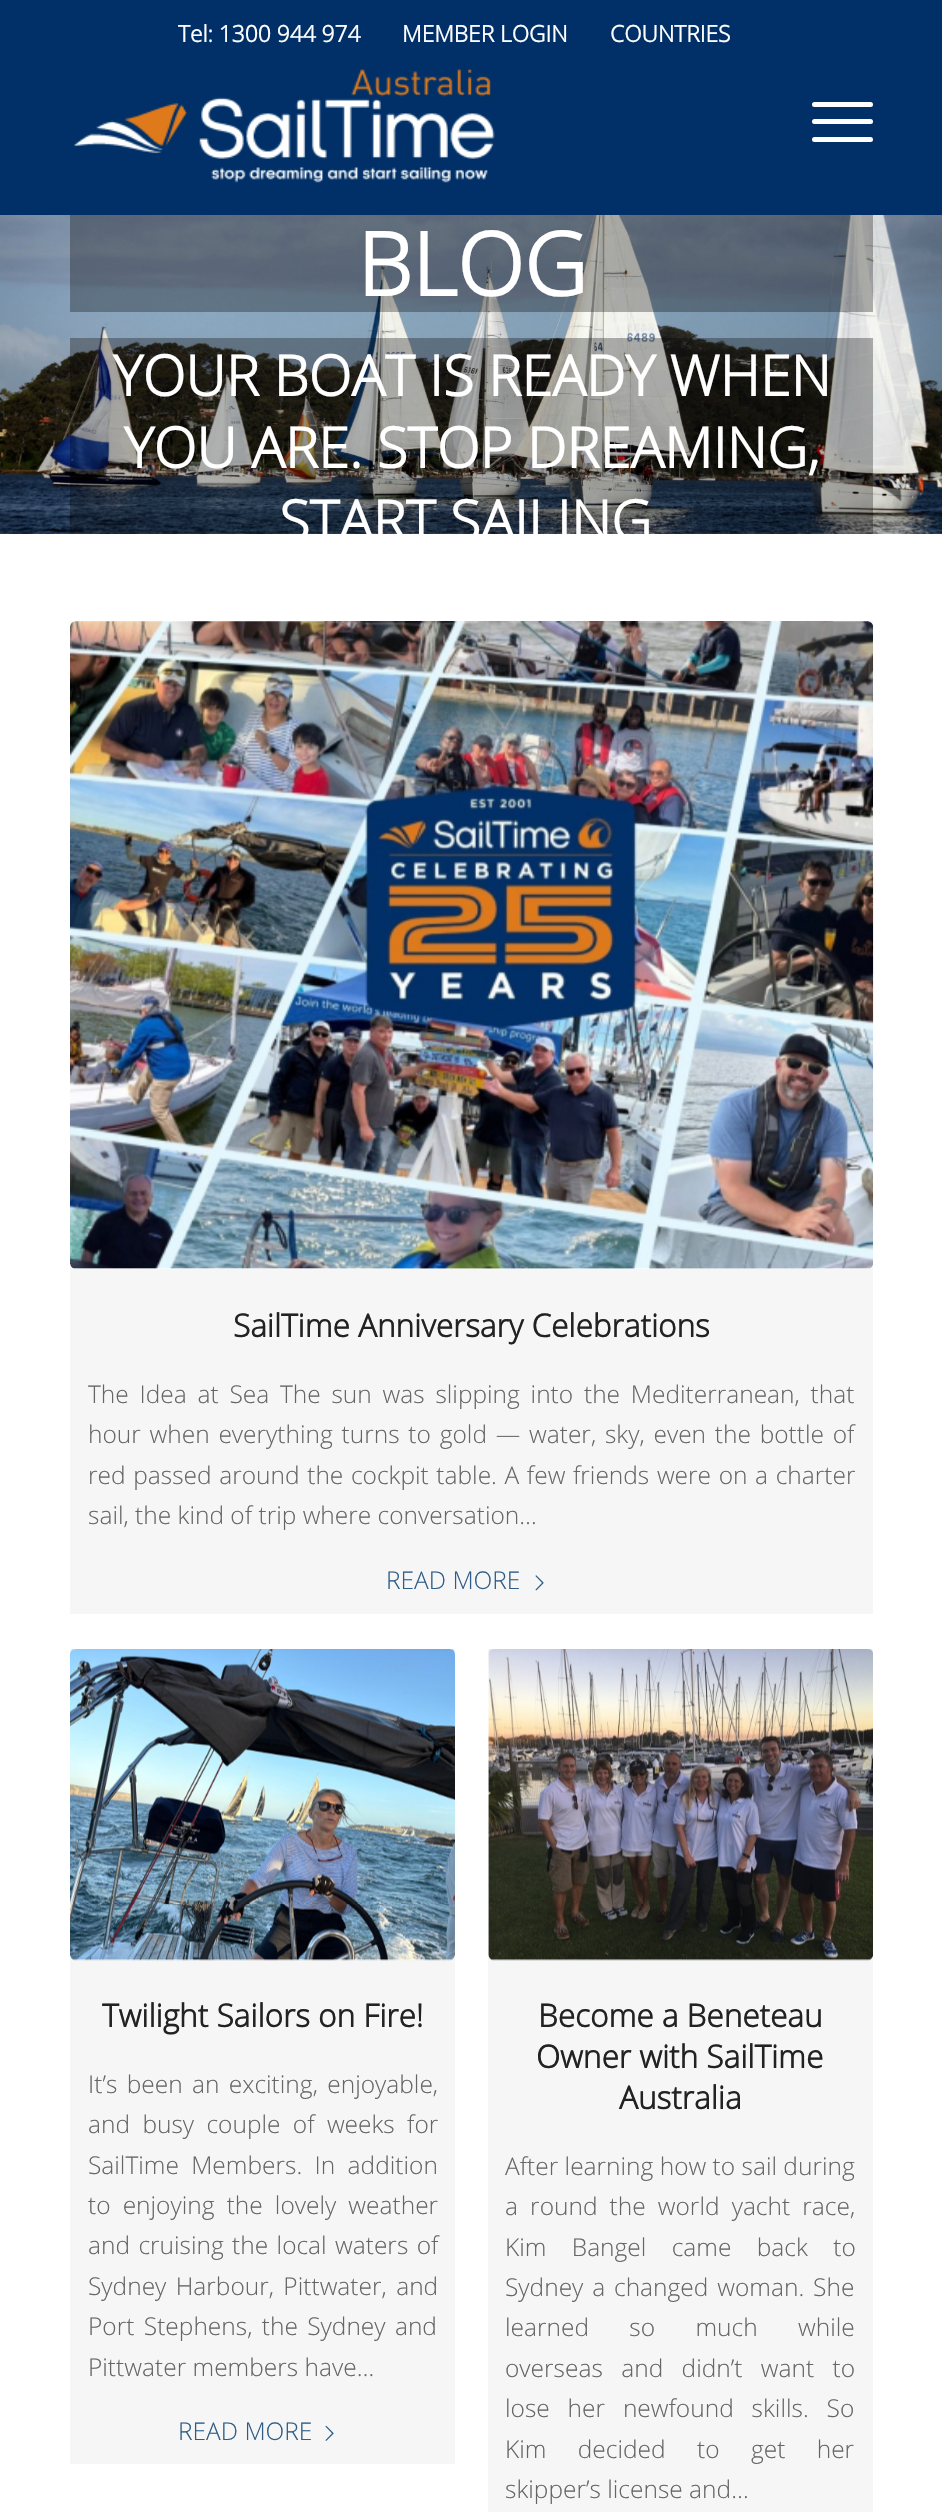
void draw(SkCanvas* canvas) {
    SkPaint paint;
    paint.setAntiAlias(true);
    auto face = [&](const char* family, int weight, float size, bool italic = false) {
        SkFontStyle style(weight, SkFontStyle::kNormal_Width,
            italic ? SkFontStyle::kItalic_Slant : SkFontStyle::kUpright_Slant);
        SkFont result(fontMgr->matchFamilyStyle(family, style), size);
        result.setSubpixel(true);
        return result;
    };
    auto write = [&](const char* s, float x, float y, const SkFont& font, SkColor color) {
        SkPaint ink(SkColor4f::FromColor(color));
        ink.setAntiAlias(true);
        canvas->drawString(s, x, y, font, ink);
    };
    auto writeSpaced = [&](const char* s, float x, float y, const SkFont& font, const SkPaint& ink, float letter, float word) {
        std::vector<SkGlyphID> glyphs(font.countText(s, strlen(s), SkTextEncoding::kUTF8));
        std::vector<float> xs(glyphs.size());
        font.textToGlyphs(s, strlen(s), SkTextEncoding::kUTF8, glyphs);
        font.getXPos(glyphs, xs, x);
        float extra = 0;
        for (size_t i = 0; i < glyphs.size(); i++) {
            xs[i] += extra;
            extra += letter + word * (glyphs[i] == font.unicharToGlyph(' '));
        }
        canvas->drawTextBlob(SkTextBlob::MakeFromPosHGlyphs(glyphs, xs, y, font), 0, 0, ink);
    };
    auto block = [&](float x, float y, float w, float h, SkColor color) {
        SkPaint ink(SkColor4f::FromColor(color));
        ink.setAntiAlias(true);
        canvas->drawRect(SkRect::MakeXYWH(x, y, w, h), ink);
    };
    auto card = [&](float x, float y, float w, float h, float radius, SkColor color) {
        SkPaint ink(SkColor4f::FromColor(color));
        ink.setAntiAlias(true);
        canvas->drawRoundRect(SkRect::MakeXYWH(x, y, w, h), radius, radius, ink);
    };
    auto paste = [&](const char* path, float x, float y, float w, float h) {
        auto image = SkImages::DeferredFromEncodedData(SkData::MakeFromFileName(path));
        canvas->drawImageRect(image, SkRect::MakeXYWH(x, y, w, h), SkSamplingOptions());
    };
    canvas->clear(SK_ColorWHITE);
    block(0, 0, 942, 215, SkColorSetRGB(0, 48, 103));
    auto kFont1 = face("Open Sans", 700, 22.75f);
    write("Tel: 1300 944 974", 178, 42, kFont1, SK_ColorWHITE);
    write("MEMBER LOGIN", 402, 42, kFont1, SK_ColorWHITE);
    write("COUNTRIES", 610, 42, kFont1, SK_ColorWHITE);
    paste("pic1.png", 74, 69, 421, 114);
    card(812, 119, 61, 5, 2.5f, SK_ColorWHITE);
    card(812, 102, 61, 5, 2.5f, SK_ColorWHITE);
    card(812, 137, 61, 5, 2.5f, SK_ColorWHITE);
    paste("pic2.png", 0, 215, 942, 319);
    block(70, 215, 803, 97, SkColorSetARGB(77, 0, 0, 0));
    auto kFont2 = face("Open Sans", 700, 87.5f);
    write("BLOG", 357, 296, kFont2, SK_ColorWHITE);
    block(70, 338, 803, 196, SkColorSetARGB(77, 0, 0, 0));
    auto kFont3 = face("Open Sans", 700, 56);
    write("YOUR BOAT IS READY WHEN", 113, 396, kFont3, SK_ColorWHITE);
    write("YOU ARE. STOP DREAMING,", 124, 468, kFont3, SK_ColorWHITE);
    canvas->save();
    canvas->clipRect(SkRect::MakeXYWH(0, 215, 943, 319));
    write("START SAILING", 279, 541, kFont3, SK_ColorWHITE);
    canvas->restore();
    block(70, 621, 803, 993, SkColorSetRGB(246, 246, 246));
    card(70, 621, 803, 648, 5, SK_ColorWHITE);
    paste("pic3.png", 70, 621, 804, 648);
    auto kFont4 = face("Open Sans", 700, 31.5f);
    write("SailTime Anniversary Celebrations", 233, 1337, kFont4, SkColorSetRGB(34, 34, 34));
    auto kFont5 = face("Open Sans", 300, 24.5f);
    paint.setColor(SkColorSetRGB(102, 102, 102));
    writeSpaced("The Idea at Sea The sun was slipping into the Mediterranean, that", 88, 1403, kFont5, paint, 0, 4.4f);
    writeSpaced("hour when everything turns to gold — water, sky, even the bottle of", 88, 1443, kFont5, paint, 0, 2.4f);
    writeSpaced("red passed around the cockpit table. A few friends were on a charter", 88, 1484, kFont5, paint, 0, 1.25f);
    write("sail, the kind of trip where conversation…", 88, 1524, kFont5, SkColorSetRGB(102, 102, 102));
    write("READ MORE", 386, 1589, kFont5, SkColorSetRGB(45, 92, 136));
    paste("pic4.png", 535, 1575, 9, 16);
    block(70, 1649, 385, 815, SkColorSetRGB(246, 246, 246));
    card(70, 1649, 385, 311, 5, SK_ColorWHITE);
    paste("pic5.png", 70, 1649, 385, 312);
    write("Twilight Sailors on Fire!", 102, 2027, kFont4, SkColorSetRGB(34, 34, 34));
    writeSpaced("It’s been an exciting, enjoyable,", 88, 2093, kFont5, paint, 0, 3);
    writeSpaced("and busy couple of weeks for", 88, 2133, kFont5, paint, 0, 6);
    writeSpaced("SailTime Members. In addition", 88, 2174, kFont5, paint, 0, 6);
    writeSpaced("to enjoying the lovely weather", 88, 2214, kFont5, paint, 0, 5.75f);
    writeSpaced("and cruising the local waters of", 88, 2254, kFont5, paint, 0, 2);
    writeSpaced("Sydney Harbour, Pittwater, and", 88, 2295, kFont5, paint, 0, 3);
    writeSpaced("Port Stephens, the Sydney and", 88, 2335, kFont5, paint, 0, 3);
    write("Pittwater members have…", 88, 2376, kFont5, SkColorSetRGB(102, 102, 102));
    write("READ MORE", 178, 2440, kFont5, SkColorSetRGB(45, 92, 136));
    paste("pic6.png", 325, 2425, 9, 16);
    block(488, 1649, 385, 863, SkColorSetRGB(246, 246, 246));
    card(488, 1649, 385, 311, 5, SK_ColorWHITE);
    paste("pic7.png", 488, 1649, 385, 312);
    write("Become a Beneteau", 538, 2027, kFont4, SkColorSetRGB(34, 34, 34));
    write("Owner with SailTime", 536, 2068, kFont4, SkColorSetRGB(34, 34, 34));
    write("Australia", 619, 2109, kFont4, SkColorSetRGB(34, 34, 34));
    write("After learning how to sail during", 505, 2175, kFont5, SkColorSetRGB(102, 102, 102));
    writeSpaced("a round the world yacht race,", 505, 2215, kFont5, paint, 0, 5.75f);
    writeSpaced("Kim Bangel came back to", 505, 2256, kFont5, paint, 0, 19);
    writeSpaced("Sydney a changed woman. She", 505, 2296, kFont5, paint, 0, 2.5f);
    writeSpaced("learned so much while", 505, 2336, kFont5, paint, 0, 34);
    writeSpaced("overseas and didn’t want to", 505, 2377, kFont5, paint, 0, 12);
    writeSpaced("lose her newfound skills. So", 505, 2417, kFont5, paint, 0, 11.5f);
    writeSpaced("Kim decided to get her", 505, 2458, kFont5, paint, 0, 25);
    write("skipper’s license and…", 505, 2498, kFont5, SkColorSetRGB(102, 102, 102));
}
